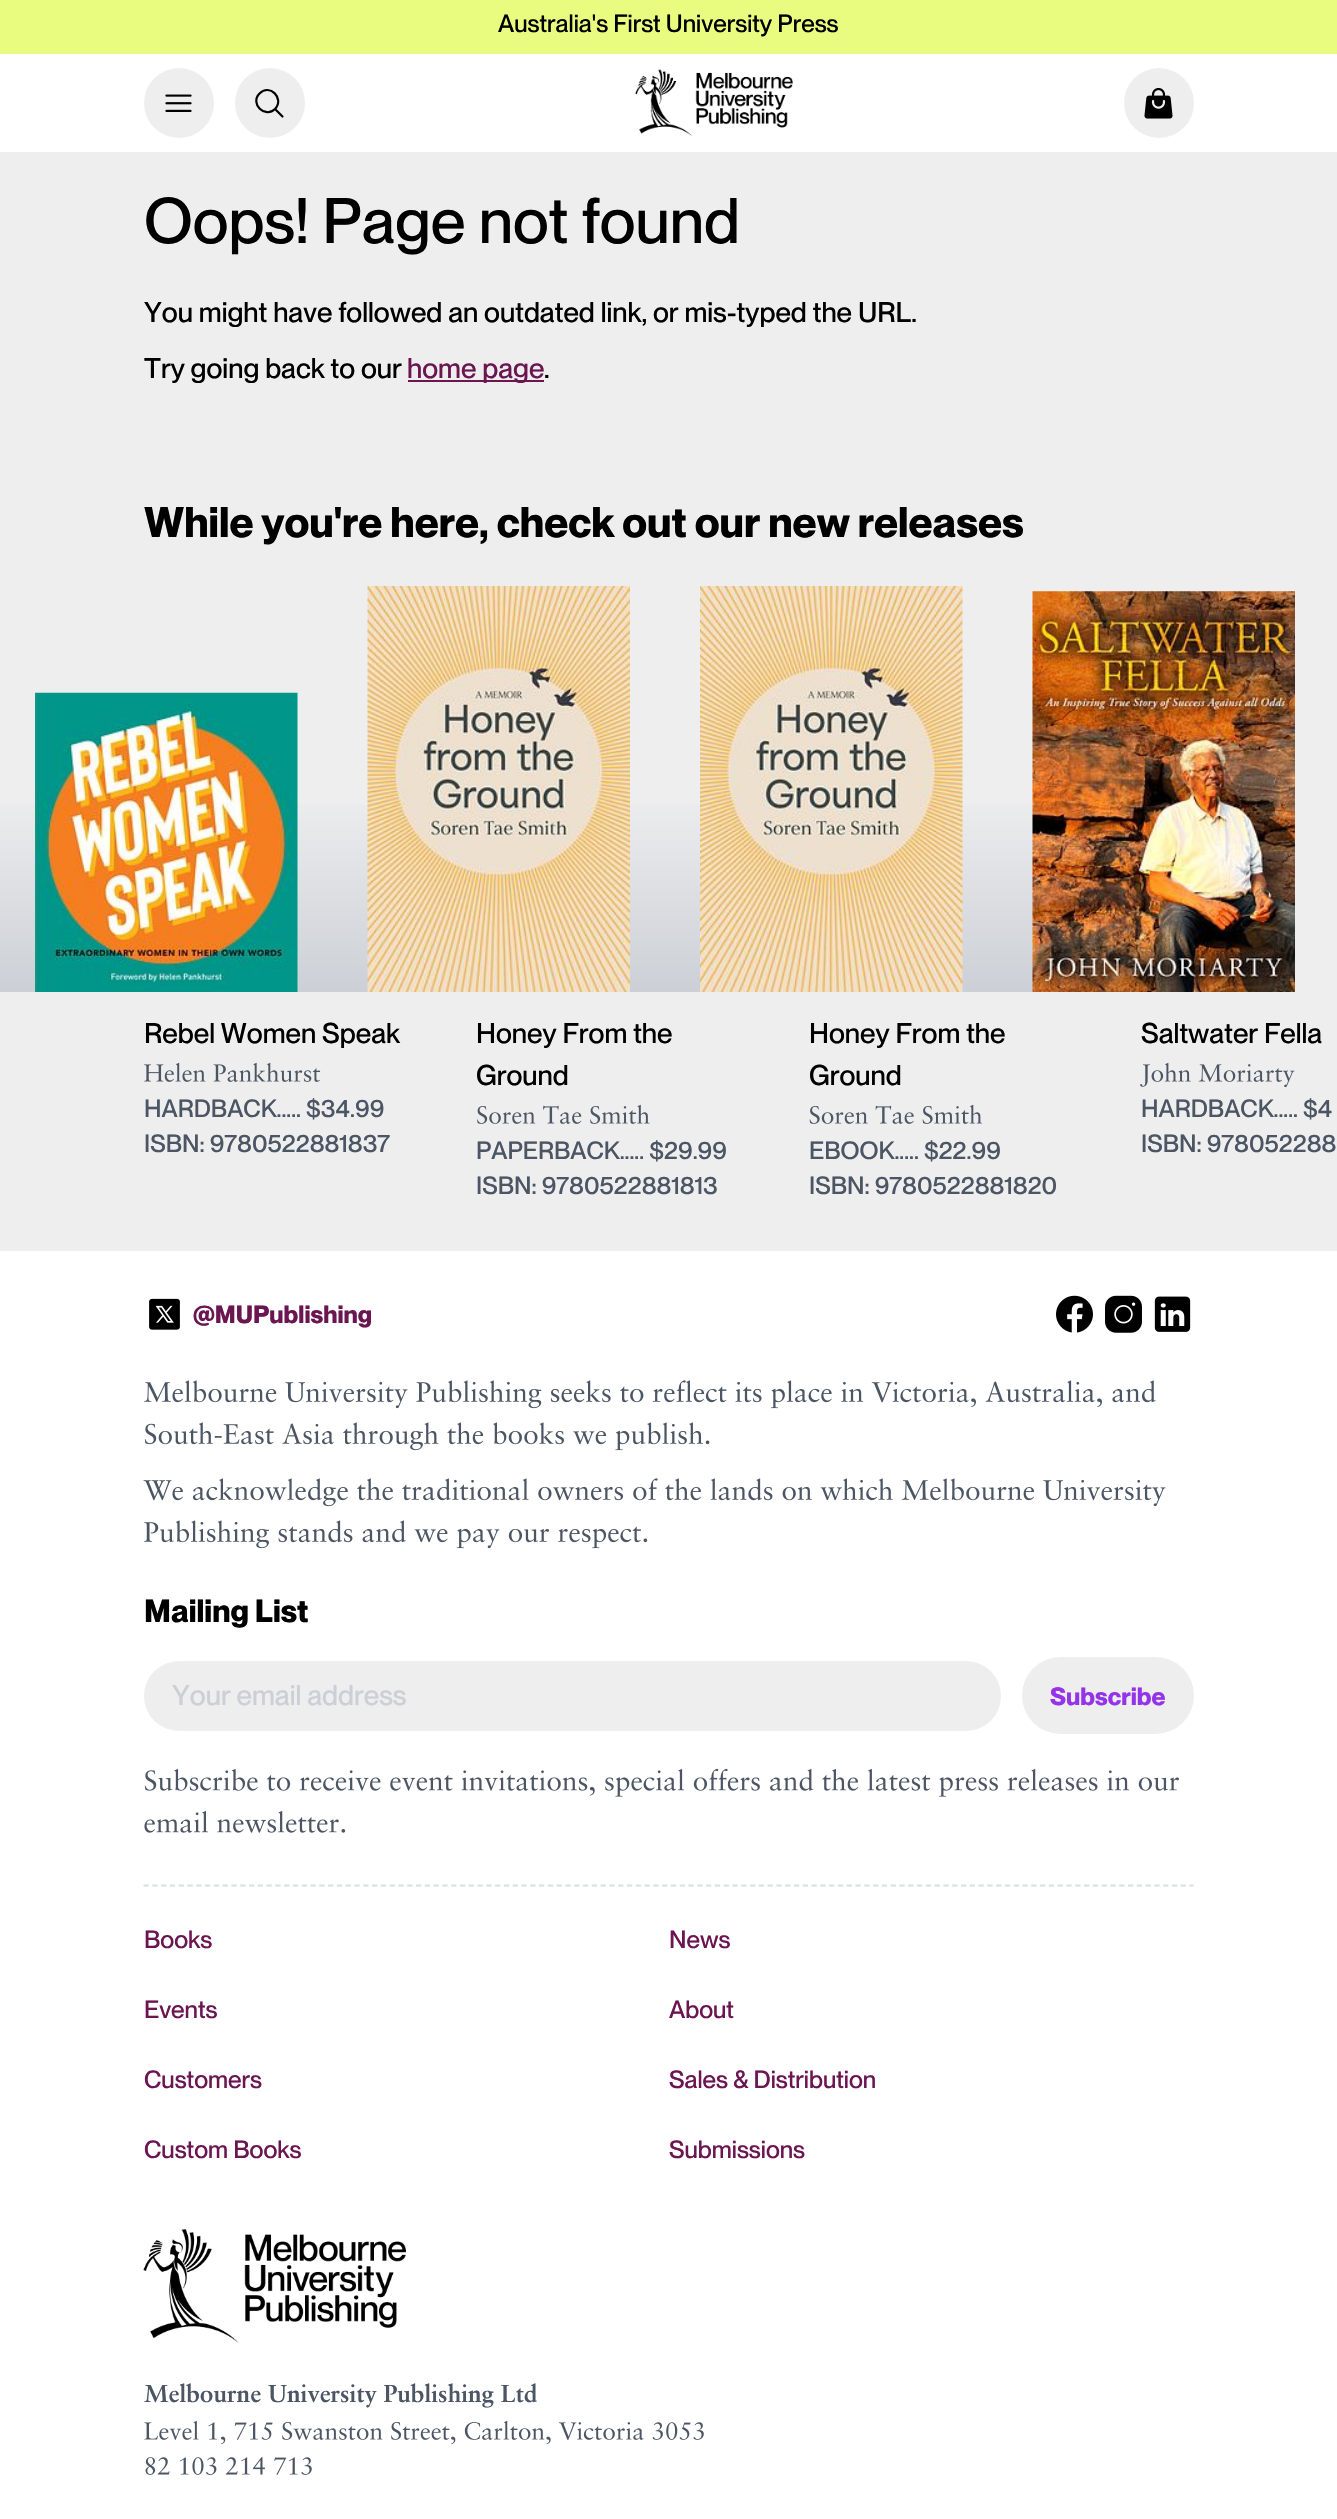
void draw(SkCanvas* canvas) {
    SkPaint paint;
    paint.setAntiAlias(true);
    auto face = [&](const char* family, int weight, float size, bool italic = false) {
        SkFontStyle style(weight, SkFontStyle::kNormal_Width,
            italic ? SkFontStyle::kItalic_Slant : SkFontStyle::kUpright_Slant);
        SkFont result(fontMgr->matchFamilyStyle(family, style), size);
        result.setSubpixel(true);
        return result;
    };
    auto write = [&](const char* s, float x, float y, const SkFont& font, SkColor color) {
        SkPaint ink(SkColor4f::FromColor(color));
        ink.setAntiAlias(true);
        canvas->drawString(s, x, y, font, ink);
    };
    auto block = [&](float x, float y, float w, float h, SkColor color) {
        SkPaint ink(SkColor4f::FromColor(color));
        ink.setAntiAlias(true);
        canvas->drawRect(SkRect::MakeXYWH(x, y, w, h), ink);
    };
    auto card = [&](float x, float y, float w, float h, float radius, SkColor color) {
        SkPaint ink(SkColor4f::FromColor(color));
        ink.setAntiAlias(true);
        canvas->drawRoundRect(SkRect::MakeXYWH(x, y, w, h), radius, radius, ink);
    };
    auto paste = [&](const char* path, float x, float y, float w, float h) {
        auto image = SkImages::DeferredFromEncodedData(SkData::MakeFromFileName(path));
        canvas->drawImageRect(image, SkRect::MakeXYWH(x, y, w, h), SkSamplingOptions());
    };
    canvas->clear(SK_ColorWHITE);
    block(0, 0, 1337, 54, SkColorSetRGB(234, 252, 127));
    auto kFont1 = face("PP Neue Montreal", 500, 24.5f);
    write("Australia's First University Press", 498, 32, kFont1, SK_ColorBLACK);
    paint.setColor(SkColorSetRGB(238, 238, 239));
    canvas->drawCircle(179, 103, 35, paint);
    paste("pic1.png", 165, 94, 27, 18);
    canvas->drawCircle(270, 103, 35, paint);
    paint.setStyle(SkPaint::kStroke_Style);
    paint.setStrokeWidth(2.2f);
    paint.setStrokeCap(SkPaint::kRound_Cap);
    paint.setStrokeJoin(SkPaint::kRound_Join);
    paint.setColor(SK_ColorBLACK);
    canvas->drawPath(SkPathBuilder().moveTo(282.5f, 116.5f).lineTo(275, 109).moveTo(275, 109).cubicTo(285, 98.5f, 269.5f, 83, 259.5f, 93.5f).cubicTo(249.5f, 103.5f, 265, 119, 275, 109).close().detach(), paint);
    paste("pic2.png", 635, 69, 158, 67);
    paint.setStyle(SkPaint::kFill_Style);
    paint.setColor(SkColorSetRGB(238, 238, 239));
    canvas->drawCircle(1159, 103, 35, paint);
    paste("pic3.png", 1144, 87, 29, 32);
    block(0, 152, 1337, 1099, SkColorSetRGB(238, 238, 239));
    auto kFont2 = face("PP Neue Montreal", 500, 63);
    write("Oops! Page not found", 144, 243, kFont2, SK_ColorBLACK);
    auto kFont3 = face("PP Neue Montreal", 500, 28);
    write("You might have followed an outdated link, or mis-typed the URL.", 144, 322, kFont3, SK_ColorBLACK);
    write("Try going back to our", 144, 378, kFont3, SK_ColorBLACK);
    block(408, 380, 136, 2, SkColorSetRGB(107, 21, 81));
    write("home page", 407, 378, kFont3, SkColorSetRGB(107, 21, 81));
    write(".", 544, 378, kFont3, SK_ColorBLACK);
    auto kFont4 = face("PP Neue Montreal", 700, 42);
    write("While you're here, check out our new releases", 144, 537, kFont4, SK_ColorBLACK);
    {
        const SkColor colors[] = {SkColorSetRGB(238, 238, 239), SkColorSetRGB(204, 208, 214)};
        const float stops[] = {0.5f, 1};
        const SkPoint ends[] = {{560, 586}, {560, 992}};
        paint.setShader(SkGradientShader::MakeLinear(ends, colors, stops, 2, SkTileMode::kClamp));
        paint.setAlpha(255);
    }
    canvas->drawRect(SkRect::MakeXYWH(0, 804, 1120, 188), paint);
    paste("pic4.png", 35, 692, 263, 300);
    paste("pic5.png", 367, 586, 263, 406);
    paste("pic6.png", 700, 586, 263, 406);
    paste("pic7.png", 1032, 591, 263, 401);
    write("Rebel Women Speak", 144, 1043, kFont3, SK_ColorBLACK);
    paste("pic8.png", 144, 1062, 177, 20);
    write("HARDBACK..... $34.99", 144, 1117, kFont1, SkColorSetRGB(75, 85, 99));
    write("ISBN: 9780522881837", 144, 1152, kFont1, SkColorSetRGB(75, 85, 99));
    write("Honey From the", 476, 1043, kFont3, SK_ColorBLACK);
    write("Ground", 476, 1085, kFont3, SK_ColorBLACK);
    paste("pic9.png", 477, 1104, 173, 20);
    write("PAPERBACK..... $29.99", 476, 1159, kFont1, SkColorSetRGB(75, 85, 99));
    write("ISBN: 9780522881813", 476, 1194, kFont1, SkColorSetRGB(75, 85, 99));
    write("Honey From the", 809, 1043, kFont3, SK_ColorBLACK);
    write("Ground", 809, 1085, kFont3, SK_ColorBLACK);
    paste("pic10.png", 809, 1104, 173, 20);
    write("EBOOK..... $22.99", 809, 1159, kFont1, SkColorSetRGB(75, 85, 99));
    write("ISBN: 9780522881820", 809, 1194, kFont1, SkColorSetRGB(75, 85, 99));
    write("Saltwater Fella", 1141, 1043, kFont3, SK_ColorBLACK);
    paste("pic11.png", 1140, 1062, 155, 26);
    write("HARDBACK..... $4", 1141, 1117, kFont1, SkColorSetRGB(75, 85, 99));
    write("ISBN: 978052288", 1141, 1152, kFont1, SkColorSetRGB(75, 85, 99));
    paint.setStyle(SkPaint::kStroke_Style);
    paint.setStrokeWidth(1.8f);
    paint.setStrokeCap(SkPaint::kButt_Cap);
    paint.setStrokeJoin(SkPaint::kMiter_Join);
    paint.setShader(nullptr);
    paint.setColor(SkColorSetRGB(218, 223, 229));
    paint.setPathEffect(SkDashPathEffect::Make({{5.25f, 3.54f}}, 0));
    canvas->drawPath(SkPathBuilder().moveTo(143.5f, 1885.5f).lineTo(1193.5f, 1885.5f).detach(), paint);
    paint.setPathEffect(nullptr);
    paste("pic12.png", 149, 1298, 31, 32);
    auto kFont5 = face("PP Neue Montreal", 700, 24.5f);
    write("@MUPublishing", 193, 1323, kFont5, SkColorSetRGB(107, 21, 81));
    paste("pic13.png", 1056, 1295, 37, 38);
    paste("pic14.png", 1105, 1295, 37, 38);
    paste("pic15.png", 1154, 1296, 37, 36);
    paste("pic16.png", 144, 1380, 832, 29);
    paste("pic17.png", 985, 1380, 171, 27);
    paste("pic18.png", 144, 1422, 566, 29);
    paste("pic19.png", 143, 1478, 891, 29);
    paste("pic20.png", 1043, 1479, 123, 28);
    paste("pic21.png", 144, 1520, 504, 29);
    auto kFont6 = face("PP Neue Montreal", 700, 31.5f);
    write("Mailing List", 144, 1622, kFont6, SK_ColorBLACK);
    card(144, 1661, 857, 70, 35, SkColorSetRGB(238, 238, 239));
    write("Your email address", 172, 1705, kFont3, SkColorSetRGB(204, 208, 214));
    card(1022, 1657, 172, 77, 38.5f, SkColorSetRGB(238, 238, 239));
    write("Subscribe", 1050, 1705, kFont5, SkColorSetRGB(147, 51, 234));
    paste("pic22.png", 144, 1768, 1035, 29);
    paste("pic23.png", 144, 1810, 202, 23);
    write("Books", 144, 1948, kFont1, SkColorSetRGB(107, 21, 81));
    write("News", 669, 1948, kFont1, SkColorSetRGB(107, 21, 81));
    write("Events", 144, 2018, kFont1, SkColorSetRGB(107, 21, 81));
    write("About", 669, 2018, kFont1, SkColorSetRGB(107, 21, 81));
    write("Customers", 144, 2088, kFont1, SkColorSetRGB(107, 21, 81));
    write("Sales & Distribution", 669, 2088, kFont1, SkColorSetRGB(107, 21, 81));
    write("Custom Books", 144, 2158, kFont1, SkColorSetRGB(107, 21, 81));
    write("Submissions", 669, 2158, kFont1, SkColorSetRGB(107, 21, 81));
    paste("pic24.png", 143, 2229, 263, 114);
    auto kFont7 = face("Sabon", 700, 24.5f);
    write("Melbourne University Publishing Ltd", 144, 2402, kFont7, SkColorSetRGB(75, 85, 99));
    paste("pic25.png", 144, 2420, 560, 25);
    paste("pic26.png", 145, 2457, 167, 18);
}
